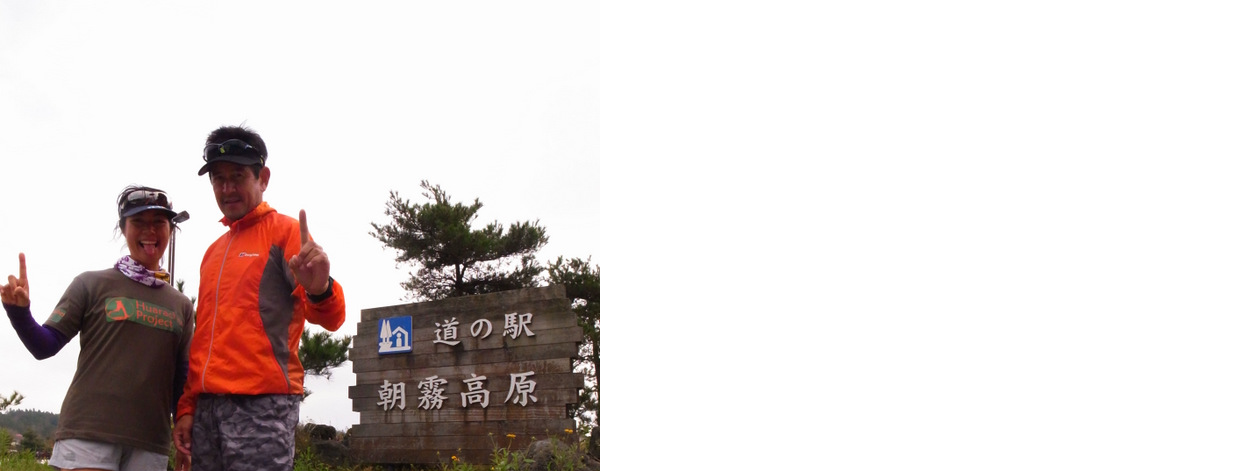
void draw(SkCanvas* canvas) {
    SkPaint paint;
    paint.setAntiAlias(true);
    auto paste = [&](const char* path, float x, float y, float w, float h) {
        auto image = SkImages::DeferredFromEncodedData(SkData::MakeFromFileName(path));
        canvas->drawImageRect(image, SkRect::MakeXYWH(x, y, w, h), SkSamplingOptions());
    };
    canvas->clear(SK_ColorWHITE);
    paste("pic1.png", 0, 0, 600, 471);
}
